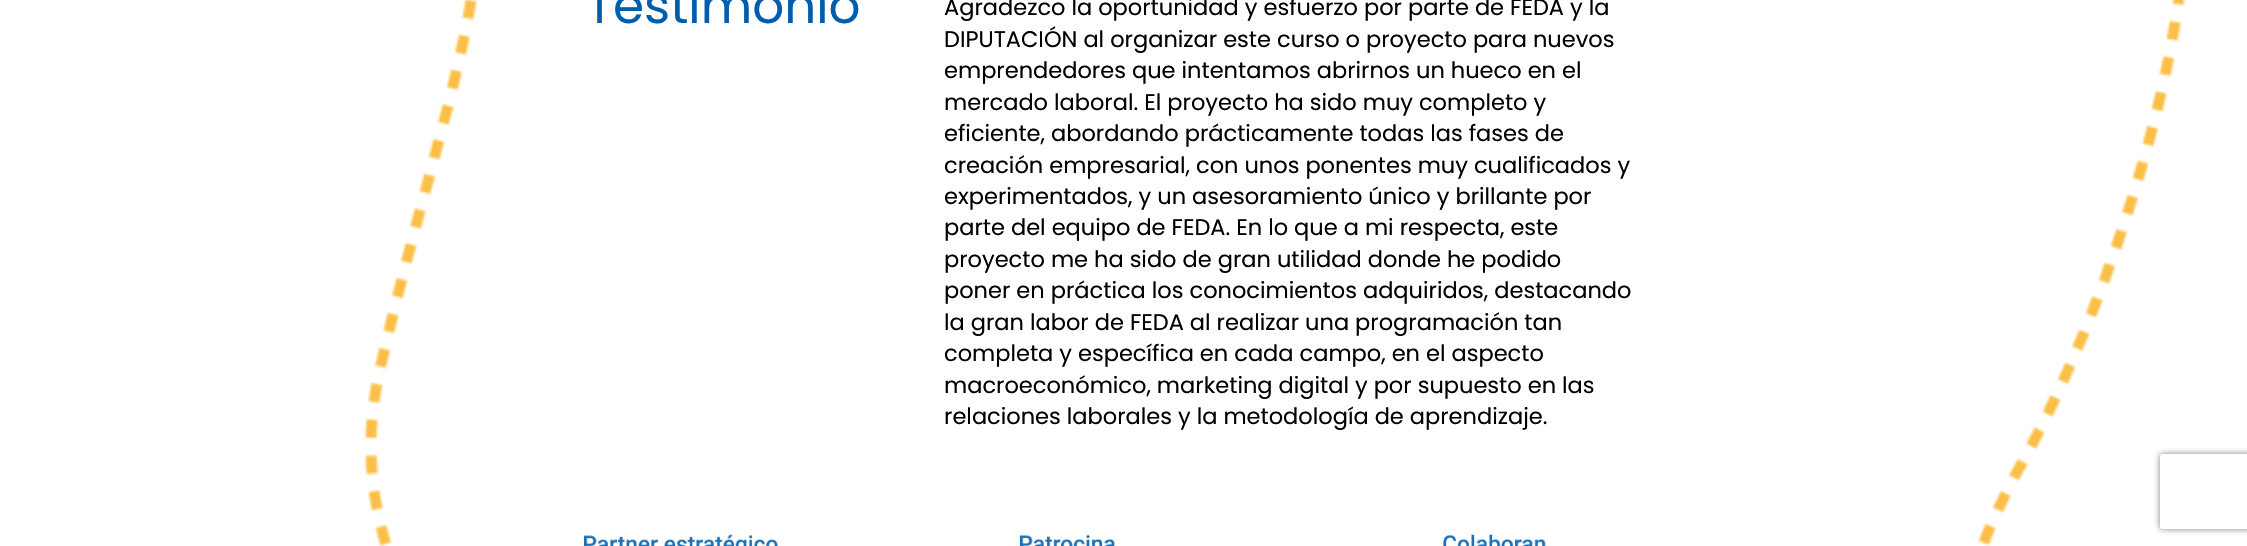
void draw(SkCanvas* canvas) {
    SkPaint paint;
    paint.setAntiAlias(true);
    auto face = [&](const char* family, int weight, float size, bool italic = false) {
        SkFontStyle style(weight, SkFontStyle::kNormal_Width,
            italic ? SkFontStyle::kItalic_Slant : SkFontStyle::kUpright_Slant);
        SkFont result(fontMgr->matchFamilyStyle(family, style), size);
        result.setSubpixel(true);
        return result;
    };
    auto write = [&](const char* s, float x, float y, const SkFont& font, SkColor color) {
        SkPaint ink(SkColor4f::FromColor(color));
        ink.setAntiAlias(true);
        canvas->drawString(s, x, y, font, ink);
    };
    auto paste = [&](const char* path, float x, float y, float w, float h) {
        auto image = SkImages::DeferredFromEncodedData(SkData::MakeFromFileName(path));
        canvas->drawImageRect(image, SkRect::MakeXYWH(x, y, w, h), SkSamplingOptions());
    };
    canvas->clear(SK_ColorWHITE);
    paste("pic1.png", 364, 0, 1822, 546);
    auto kFont1 = face("Poppins", 400, 50);
    write("Testimonio", 586, 23, kFont1, SkColorSetRGB(0, 93, 174));
    auto kFont2 = face("Poppins", 400, 22.5f);
    write("Agradezco la oportunidad y esfuerzo por parte de FEDA y la", 944, 15, kFont2, SK_ColorBLACK);
    write("DIPUTACIÓN al organizar este curso o proyecto para nuevos", 944, 47, kFont2, SK_ColorBLACK);
    write("emprendedores que intentamos abrirnos un hueco en el", 944, 78, kFont2, SK_ColorBLACK);
    write("mercado laboral. El proyecto ha sido muy completo y", 944, 110, kFont2, SK_ColorBLACK);
    write("eficiente, abordando prácticamente todas las fases de", 944, 141, kFont2, SK_ColorBLACK);
    write("creación empresarial, con unos ponentes muy cualificados y", 944, 173, kFont2, SK_ColorBLACK);
    write("experimentados, y un asesoramiento único y brillante por", 944, 204, kFont2, SK_ColorBLACK);
    write("parte del equipo de FEDA. En lo que a mi respecta, este", 944, 235, kFont2, SK_ColorBLACK);
    write("proyecto me ha sido de gran utilidad donde he podido", 944, 267, kFont2, SK_ColorBLACK);
    write("poner en práctica los conocimientos adquiridos, destacando", 944, 298, kFont2, SK_ColorBLACK);
    write("la gran labor de FEDA al realizar una programación tan", 944, 330, kFont2, SK_ColorBLACK);
    write("completa y específica en cada campo, en el aspecto", 944, 361, kFont2, SK_ColorBLACK);
    write("macroeconómico, marketing digital y por supuesto en las", 944, 393, kFont2, SK_ColorBLACK);
    write("relaciones laborales y la metodología de aprendizaje.", 944, 424, kFont2, SK_ColorBLACK);
    paste("pic2.png", 583, 534, 963, 12);
    canvas->save();
    canvas->clipPath(SkPathBuilder(SkPathFillType::kEvenOdd).moveTo(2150, 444).lineTo(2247, 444).lineTo(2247, 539).lineTo(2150, 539).close().moveTo(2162.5f, 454).lineTo(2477.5f, 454).cubicTo(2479, 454, 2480, 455, 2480, 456.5f).lineTo(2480, 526.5f).cubicTo(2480, 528, 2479, 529, 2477.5f, 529).lineTo(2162.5f, 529).cubicTo(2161, 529, 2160, 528, 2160, 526.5f).lineTo(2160, 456.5f).cubicTo(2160, 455, 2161, 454, 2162.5f, 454).close().detach(), true);
    paint.setColor(SkColorSetRGB(128, 128, 128));
    paint.setMaskFilter(SkMaskFilter::MakeBlur(kNormal_SkBlurStyle, 3));
    canvas->drawRoundRect(SkRect::MakeXYWH(2160, 454, 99, 75), 2.5f, 2.5f, paint);
    paint.setMaskFilter(nullptr);
    canvas->restore();
}
